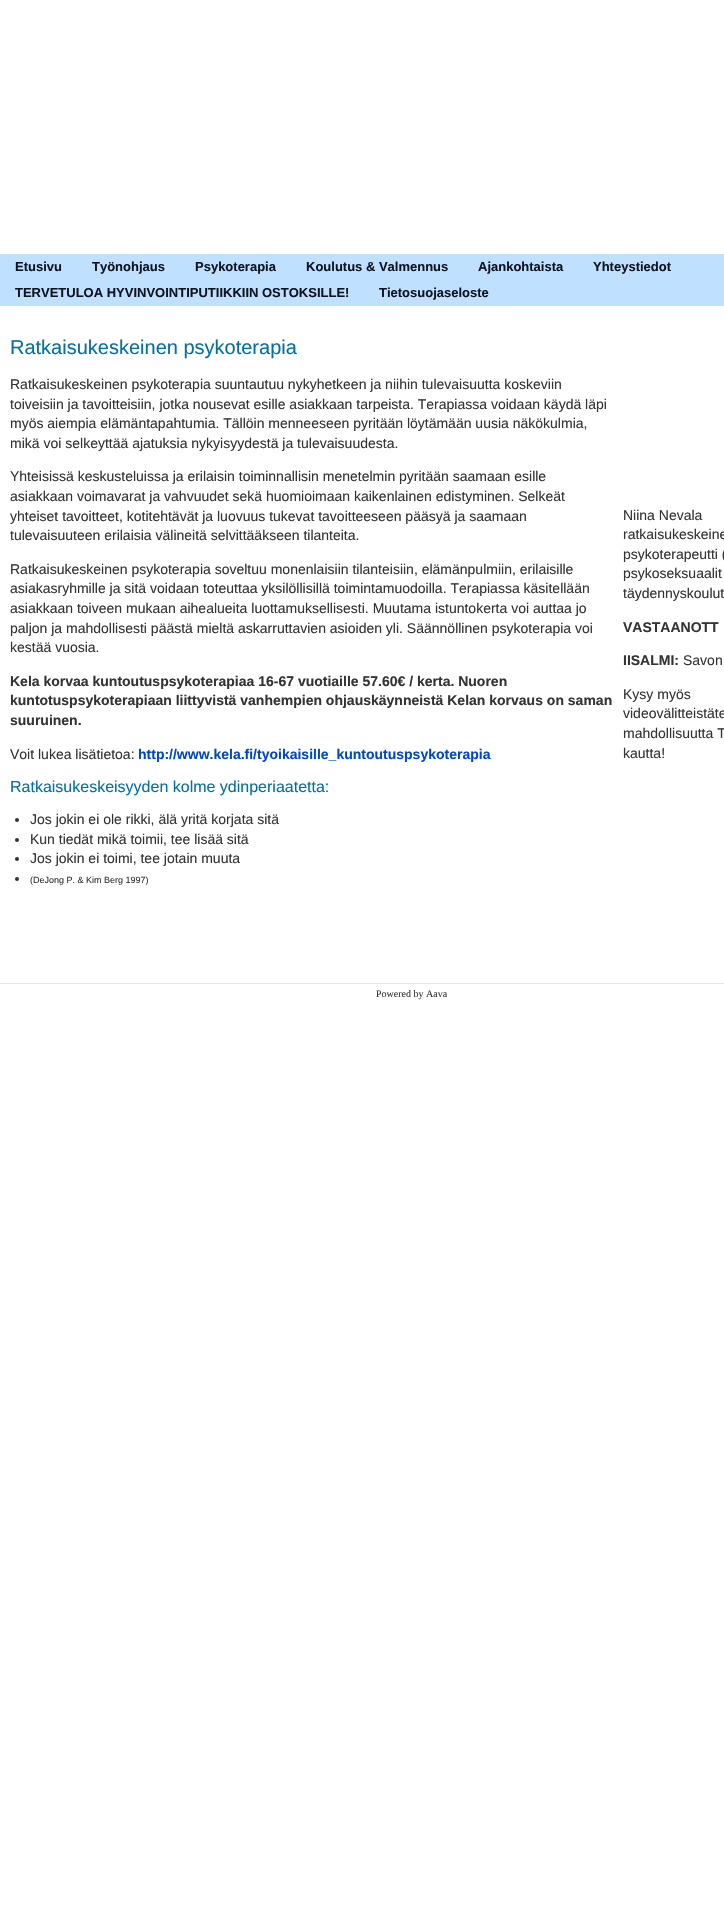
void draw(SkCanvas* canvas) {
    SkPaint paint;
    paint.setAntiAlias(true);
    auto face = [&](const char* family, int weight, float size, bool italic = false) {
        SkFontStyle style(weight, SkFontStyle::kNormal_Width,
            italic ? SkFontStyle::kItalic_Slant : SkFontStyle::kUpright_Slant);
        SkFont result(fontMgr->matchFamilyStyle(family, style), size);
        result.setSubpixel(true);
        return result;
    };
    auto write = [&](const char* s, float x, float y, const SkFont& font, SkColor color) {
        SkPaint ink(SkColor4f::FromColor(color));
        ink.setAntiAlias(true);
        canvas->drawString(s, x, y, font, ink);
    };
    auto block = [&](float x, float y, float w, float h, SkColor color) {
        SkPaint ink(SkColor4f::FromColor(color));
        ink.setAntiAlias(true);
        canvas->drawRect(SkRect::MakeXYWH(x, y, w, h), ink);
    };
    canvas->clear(SK_ColorWHITE);
    block(0, 254, 724, 52, SkColorSetRGB(192, 224, 255));
    auto kFont1 = face("Liberation Sans", 700, 13);
    write("Etusivu", 15, 271, kFont1, SkColorSetRGB(15, 21, 32));
    write("Työnohjaus", 92, 271, kFont1, SkColorSetRGB(15, 21, 32));
    write("Psykoterapia", 195, 271, kFont1, SkColorSetRGB(15, 21, 32));
    write("Koulutus & Valmennus", 306, 271, kFont1, SkColorSetRGB(15, 21, 32));
    write("Ajankohtaista", 478, 271, kFont1, SkColorSetRGB(15, 21, 32));
    write("Yhteystiedot", 593, 271, kFont1, SkColorSetRGB(15, 21, 32));
    write("TERVETULOA HYVINVOINTIPUTIIKKIIN OSTOKSILLE!", 15, 297, kFont1, SkColorSetRGB(15, 21, 32));
    write("Tietosuojaseloste", 379, 297, kFont1, SkColorSetRGB(15, 21, 32));
    auto kFont2 = face("Liberation Sans", 400, 20);
    write("Ratkaisukeskeinen psykoterapia", 10, 354, kFont2, SkColorSetRGB(5, 112, 159));
    auto kFont3 = face("Liberation Sans", 400, 14);
    write("Ratkaisukeskeinen psykoterapia suuntautuu nykyhetkeen ja niihin tulevaisuutta koskeviin", 10, 389, kFont3, SkColorSetRGB(51, 51, 51));
    write("toiveisiin ja tavoitteisiin, jotka nousevat esille asiakkaan tarpeista. Terapiassa voidaan käydä läpi", 10, 409, kFont3, SkColorSetRGB(51, 51, 51));
    write("myös aiempia elämäntapahtumia. Tällöin menneeseen pyritään löytämään uusia näkökulmia,", 10, 428, kFont3, SkColorSetRGB(51, 51, 51));
    write("mikä voi selkeyttää ajatuksia nykyisyydestä ja tulevaisuudesta.", 10, 448, kFont3, SkColorSetRGB(51, 51, 51));
    write("Yhteisissä keskusteluissa ja erilaisin toiminnallisin menetelmin pyritään saamaan esille", 10, 481, kFont3, SkColorSetRGB(51, 51, 51));
    write("asiakkaan voimavarat ja vahvuudet sekä huomioimaan kaikenlainen edistyminen. Selkeät", 10, 501, kFont3, SkColorSetRGB(51, 51, 51));
    write("yhteiset tavoitteet, kotitehtävät ja luovuus tukevat tavoitteeseen pääsyä ja saamaan", 10, 521, kFont3, SkColorSetRGB(51, 51, 51));
    write("tulevaisuuteen erilaisia välineitä selvittääkseen tilanteita.", 10, 540, kFont3, SkColorSetRGB(51, 51, 51));
    write("Ratkaisukeskeinen psykoterapia soveltuu monenlaisiin tilanteisiin, elämänpulmiin, erilaisille", 10, 574, kFont3, SkColorSetRGB(51, 51, 51));
    write("asiakasryhmille ja sitä voidaan toteuttaa yksilöllisillä toimintamuodoilla. Terapiassa käsitellään", 10, 593, kFont3, SkColorSetRGB(51, 51, 51));
    write("asiakkaan toiveen mukaan aihealueita luottamuksellisesti. Muutama istuntokerta voi auttaa jo", 10, 613, kFont3, SkColorSetRGB(51, 51, 51));
    write("paljon ja mahdollisesti päästä mieltä askarruttavien asioiden yli. Säännöllinen psykoterapia voi", 10, 633, kFont3, SkColorSetRGB(51, 51, 51));
    write("kestää vuosia.", 10, 652, kFont3, SkColorSetRGB(51, 51, 51));
    auto kFont4 = face("Liberation Sans", 700, 14);
    write("Kela korvaa kuntoutuspsykoterapiaa 16-67 vuotiaille 57.60€ / kerta. Nuoren", 10, 686, kFont4, SkColorSetRGB(51, 51, 51));
    write("kuntotuspsykoterapiaan liittyvistä vanhempien ohjauskäynneistä Kelan korvaus on saman", 10, 705, kFont4, SkColorSetRGB(51, 51, 51));
    write("suuruinen.", 10, 725, kFont4, SkColorSetRGB(51, 51, 51));
    write("Voit lukea lisätietoa:", 10, 759, kFont3, SkColorSetRGB(51, 51, 51));
    write("http://www.kela.fi/tyoikaisille_kuntoutuspsykoterapia", 138, 759, kFont4, SkColorSetRGB(0, 72, 192));
    auto kFont5 = face("Liberation Sans", 400, 16);
    write("Ratkaisukeskeisyyden kolme ydinperiaatetta:", 10, 792, kFont5, SkColorSetRGB(5, 112, 159));
    paint.setColor(SkColorSetRGB(51, 51, 51));
    canvas->drawCircle(17, 820, 2, paint);
    write("Jos jokin ei ole rikki, älä yritä korjata sitä", 30, 824, kFont3, SkColorSetRGB(51, 51, 51));
    canvas->drawCircle(17, 840, 2, paint);
    write("Kun tiedät mikä toimii, tee lisää sitä", 30, 844, kFont3, SkColorSetRGB(51, 51, 51));
    canvas->drawCircle(17, 859, 2, paint);
    write("Jos jokin ei toimi, tee jotain muuta", 30, 863, kFont3, SkColorSetRGB(51, 51, 51));
    canvas->drawCircle(17, 879, 2, paint);
    auto kFont6 = face("Liberation Sans", 400, 9);
    write("(DeJong P. & Kim Berg 1997)", 30, 883, kFont6, SkColorSetRGB(51, 51, 51));
    write("Niina Nevala", 623, 520, kFont3, SkColorSetRGB(51, 51, 51));
    write("ratkaisukeskeine", 623, 539, kFont3, SkColorSetRGB(51, 51, 51));
    write("psykoterapeutti (", 623, 559, kFont3, SkColorSetRGB(51, 51, 51));
    write("psykoseksuaalit", 623, 578, kFont3, SkColorSetRGB(51, 51, 51));
    write("täydennyskoulut", 623, 598, kFont3, SkColorSetRGB(51, 51, 51));
    write("VASTAANOTT", 623, 632, kFont4, SkColorSetRGB(51, 51, 51));
    write("IISALMI:", 623, 665, kFont4, SkColorSetRGB(51, 51, 51));
    write("Savon", 683, 665, kFont3, SkColorSetRGB(51, 51, 51));
    write("Kysy myös", 623, 699, kFont3, SkColorSetRGB(51, 51, 51));
    write("videovälitteistäte", 623, 718, kFont3, SkColorSetRGB(51, 51, 51));
    write("mahdollisuutta T", 623, 738, kFont3, SkColorSetRGB(51, 51, 51));
    write("kautta!", 623, 758, kFont3, SkColorSetRGB(51, 51, 51));
    block(0, 983, 724, 1, SkColorSetRGB(211, 234, 255));
    auto kFont7 = face("Liberation Serif", 400, 10);
    write("Powered by Aava", 376, 997, kFont7, SkColorSetRGB(51, 51, 51));
}
